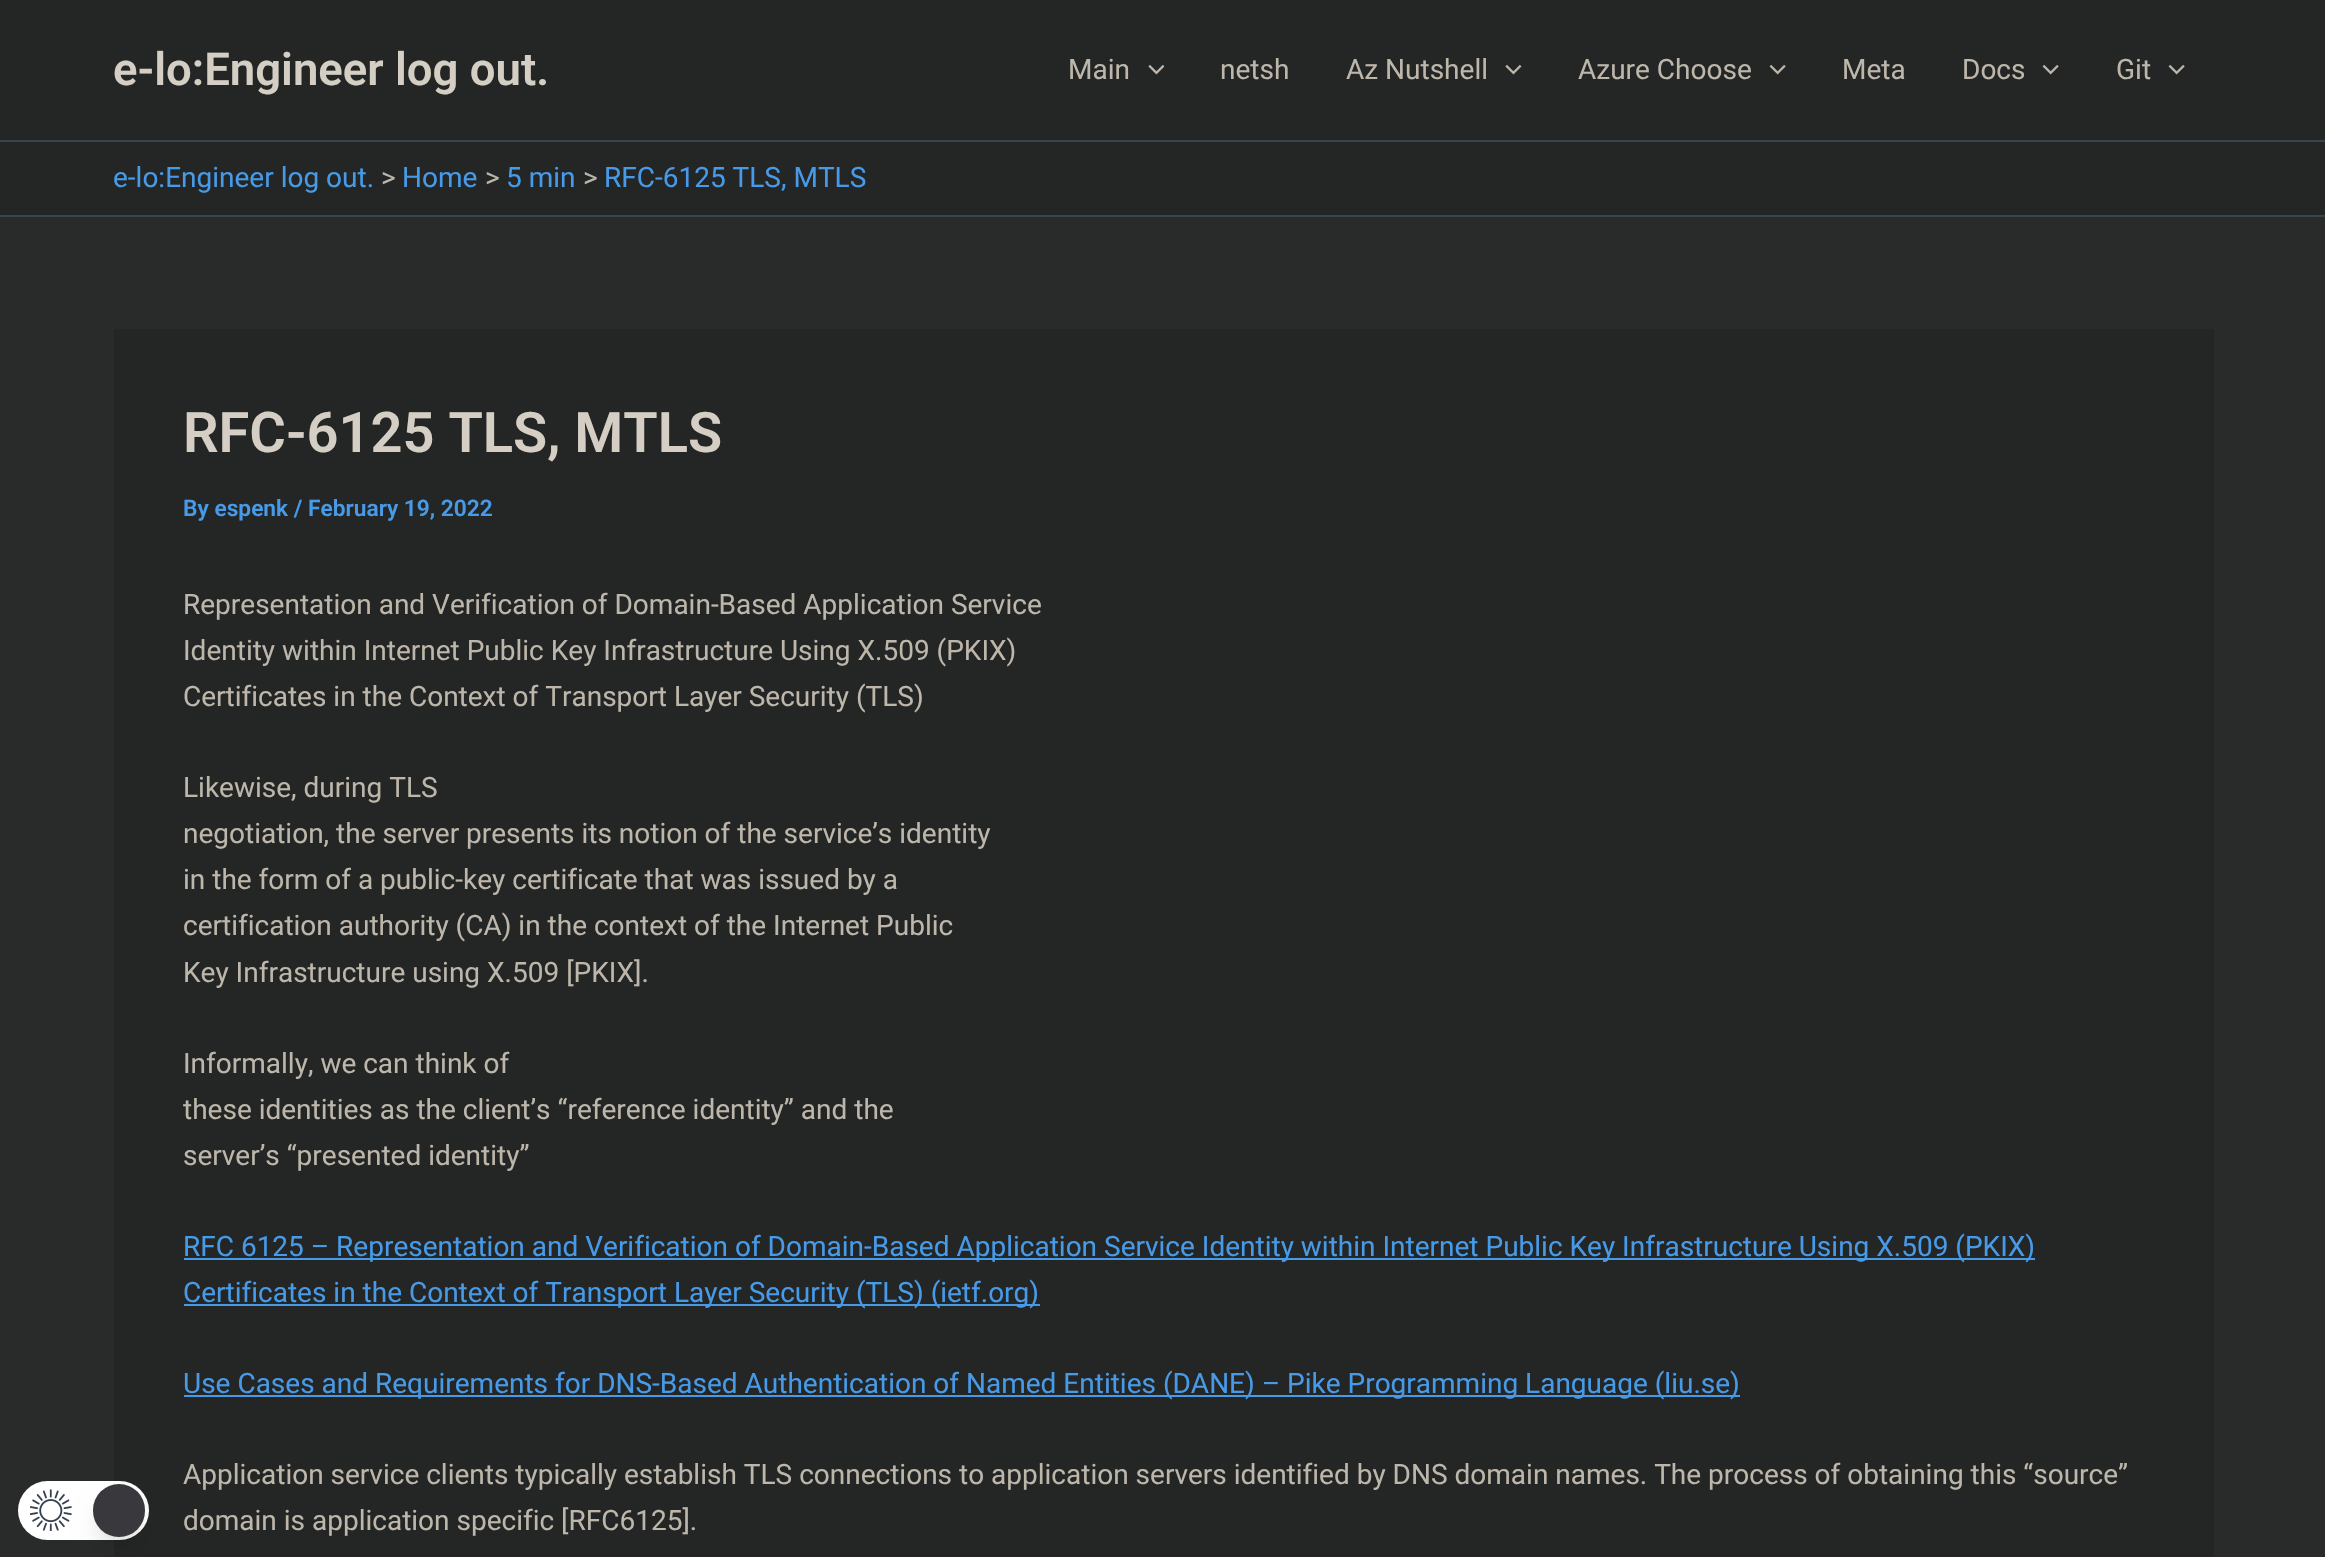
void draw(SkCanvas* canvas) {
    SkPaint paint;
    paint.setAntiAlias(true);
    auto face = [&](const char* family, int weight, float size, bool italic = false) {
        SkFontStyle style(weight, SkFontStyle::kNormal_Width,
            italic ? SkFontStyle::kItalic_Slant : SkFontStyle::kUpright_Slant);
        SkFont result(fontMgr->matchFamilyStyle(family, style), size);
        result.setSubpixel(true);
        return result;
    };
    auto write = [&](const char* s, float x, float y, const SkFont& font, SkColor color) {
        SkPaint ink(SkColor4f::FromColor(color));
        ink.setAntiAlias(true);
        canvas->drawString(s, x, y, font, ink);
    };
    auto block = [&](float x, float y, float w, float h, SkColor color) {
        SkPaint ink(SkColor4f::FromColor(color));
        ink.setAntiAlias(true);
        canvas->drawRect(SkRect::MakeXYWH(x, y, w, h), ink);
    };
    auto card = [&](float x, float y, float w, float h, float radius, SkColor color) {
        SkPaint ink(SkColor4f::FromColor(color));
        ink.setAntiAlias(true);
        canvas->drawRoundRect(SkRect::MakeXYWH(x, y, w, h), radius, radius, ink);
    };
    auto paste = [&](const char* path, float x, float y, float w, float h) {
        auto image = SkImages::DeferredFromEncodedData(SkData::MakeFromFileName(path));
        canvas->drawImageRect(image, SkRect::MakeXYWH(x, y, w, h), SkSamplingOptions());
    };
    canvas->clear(SkColorSetRGB(41, 42, 42));
    block(114, 329, 2100, 1228, SkColorSetRGB(36, 37, 37));
    card(18, 1481, 131, 59, 29.5f, SK_ColorWHITE);
    paste("pic1.png", 30, 1489, 42, 42);
    paint.setColor(SkColorSetARGB(26, 0, 0, 0));
    paint.setMaskFilter(SkMaskFilter::MakeBlur(kNormal_SkBlurStyle, 5));
    canvas->drawRoundRect(SkRect::MakeXYWH(100, 1498, 38, 39), 19, 19, paint);
    paint.setMaskFilter(nullptr);
    paint.setMaskFilter(SkMaskFilter::MakeBlur(kNormal_SkBlurStyle, 13));
    canvas->drawRoundRect(SkRect::MakeXYWH(98, 1507, 42, 42), 21, 21, paint);
    paint.setMaskFilter(nullptr);
    card(93, 1484, 52, 53, 26, SkColorSetRGB(57, 57, 61));
    block(0, 0, 2325, 140, SkColorSetRGB(36, 37, 37));
    block(0, 140, 2325, 2, SkColorSetRGB(57, 68, 82));
    auto kFont1 = face("Roboto", 600, 45.5f);
    write("e-lo:Engineer log out.", 113, 85, kFont1, SkColorSetRGB(212, 206, 196));
    auto kFont2 = face("Roboto", 400, 28);
    write("Main", 1068, 79, kFont2, SkColorSetRGB(189, 182, 170));
    paste("pic2.png", 1148, 64, 16, 11);
    write("netsh", 1220, 79, kFont2, SkColorSetRGB(189, 182, 170));
    write("Az Nutshell", 1346, 79, kFont2, SkColorSetRGB(189, 182, 170));
    paste("pic3.png", 1505, 64, 17, 11);
    write("Azure Choose", 1578, 79, kFont2, SkColorSetRGB(189, 182, 170));
    paste("pic4.png", 1769, 64, 17, 11);
    write("Meta", 1842, 79, kFont2, SkColorSetRGB(189, 182, 170));
    write("Docs", 1962, 79, kFont2, SkColorSetRGB(189, 182, 170));
    paste("pic4.png", 2042, 64, 17, 11);
    write("Git", 2116, 79, kFont2, SkColorSetRGB(189, 182, 170));
    paste("pic4.png", 2168, 64, 17, 11);
    block(0, 142, 2325, 73, SkColorSetRGB(36, 37, 37));
    block(0, 215, 2325, 2, SkColorSetRGB(57, 68, 82));
    write("e-lo:Engineer log out.", 113, 187, kFont2, SkColorSetRGB(71, 154, 231));
    write(">", 381, 187, kFont2, SkColorSetRGB(189, 182, 170));
    write("Home", 402, 187, kFont2, SkColorSetRGB(71, 154, 231));
    write(">", 485, 187, kFont2, SkColorSetRGB(189, 182, 170));
    write("5 min", 506, 187, kFont2, SkColorSetRGB(71, 154, 231));
    write(">", 583, 187, kFont2, SkColorSetRGB(189, 182, 170));
    write("RFC-6125 TLS, MTLS", 604, 187, kFont2, SkColorSetRGB(71, 154, 231));
    auto kFont3 = face("Roboto", 600, 56);
    write("RFC-6125 TLS, MTLS", 183, 452, kFont3, SkColorSetRGB(212, 206, 196));
    auto kFont4 = face("Roboto", 600, 22.75f);
    write("By espenk / February 19, 2022", 183, 516, kFont4, SkColorSetRGB(71, 154, 231));
    write("Representation and Verification of Domain-Based Application Service", 183, 614, kFont2, SkColorSetRGB(189, 182, 170));
    write("Identity within Internet Public Key Infrastructure Using X.509 (PKIX)", 183, 660, kFont2, SkColorSetRGB(189, 182, 170));
    write("Certificates in the Context of Transport Layer Security (TLS)", 183, 706, kFont2, SkColorSetRGB(189, 182, 170));
    write("Likewise, during TLS", 183, 797, kFont2, SkColorSetRGB(189, 182, 170));
    write("negotiation, the server presents its notion of the service’s identity", 183, 843, kFont2, SkColorSetRGB(189, 182, 170));
    write("in the form of a public-key certificate that was issued by a", 183, 889, kFont2, SkColorSetRGB(189, 182, 170));
    write("certification authority (CA) in the context of the Internet Public", 183, 935, kFont2, SkColorSetRGB(189, 182, 170));
    write("Key Infrastructure using X.509 [PKIX].", 183, 982, kFont2, SkColorSetRGB(189, 182, 170));
    write("Informally, we can think of", 183, 1073, kFont2, SkColorSetRGB(189, 182, 170));
    write("these identities as the client’s “reference identity” and the", 183, 1119, kFont2, SkColorSetRGB(189, 182, 170));
    write("server’s “presented identity”", 183, 1165, kFont2, SkColorSetRGB(189, 182, 170));
    block(184, 1258, 1851, 2, SkColorSetRGB(71, 154, 231));
    write("RFC 6125 – Representation and Verification of Domain-Based Application Service Identity within Internet Public Key Infrastructure Using X.509 (PKIX)", 183, 1256, kFont2, SkColorSetRGB(71, 154, 231));
    block(184, 1304, 856, 2, SkColorSetRGB(71, 154, 231));
    write("Certificates in the Context of Transport Layer Security (TLS) (ietf.org)", 183, 1302, kFont2, SkColorSetRGB(71, 154, 231));
    block(184, 1395, 1556, 2, SkColorSetRGB(71, 154, 231));
    write("Use Cases and Requirements for DNS-Based Authentication of Named Entities (DANE) – Pike Programming Language (liu.se)", 183, 1393, kFont2, SkColorSetRGB(71, 154, 231));
    write("Application service clients typically establish TLS connections to application servers identified by DNS domain names. The process of obtaining this “source”", 183, 1484, kFont2, SkColorSetRGB(189, 182, 170));
    write("domain is application specific [RFC6125].", 183, 1530, kFont2, SkColorSetRGB(189, 182, 170));
}
